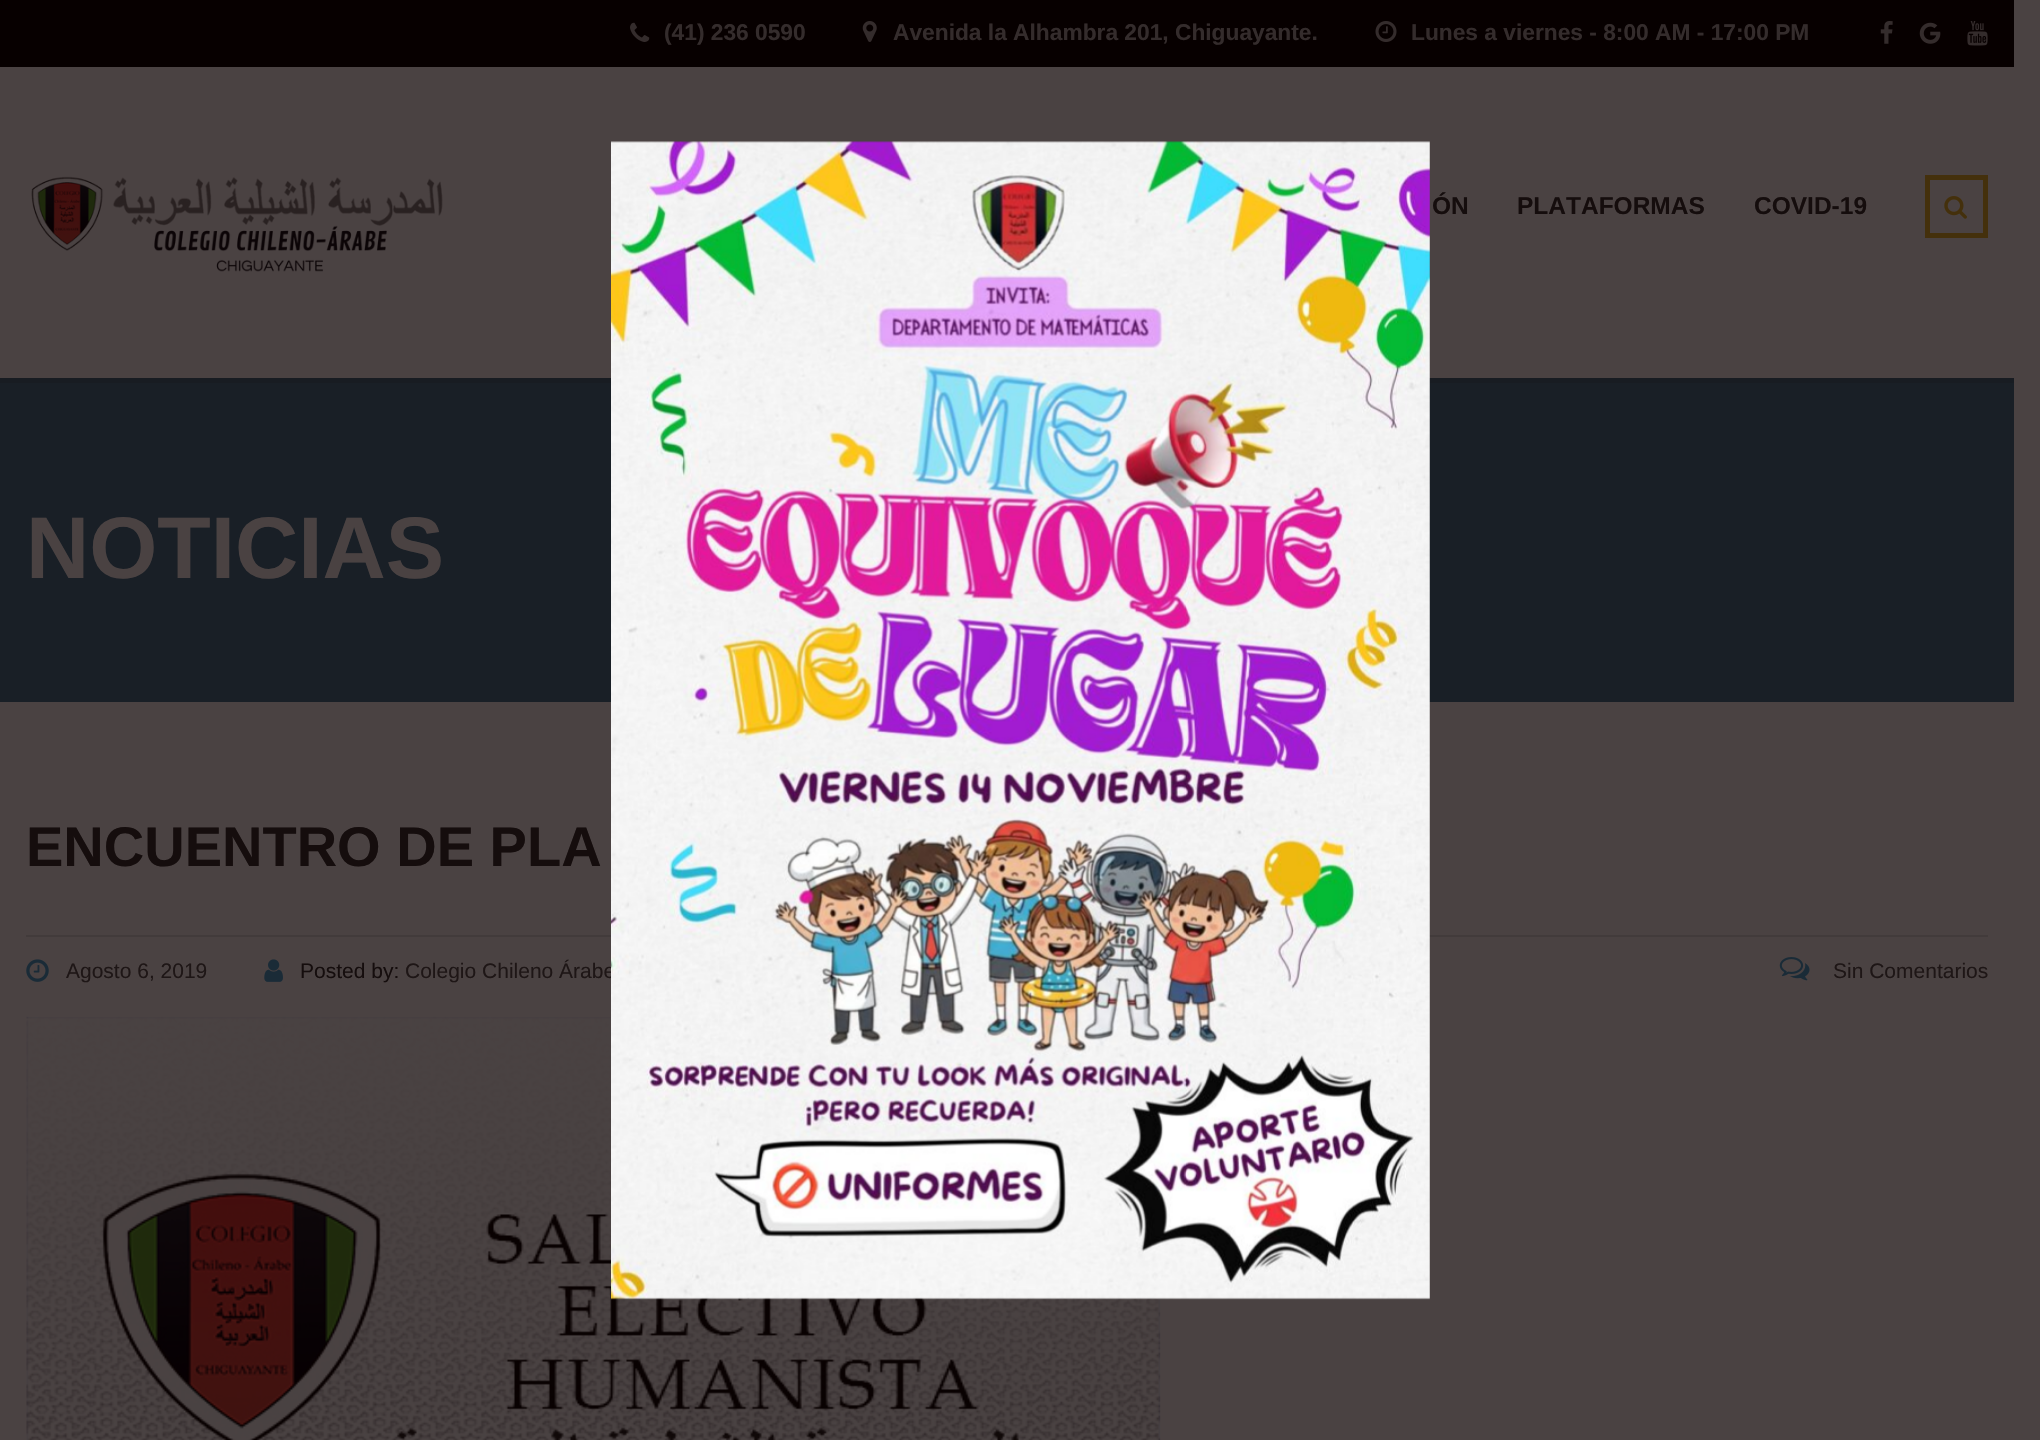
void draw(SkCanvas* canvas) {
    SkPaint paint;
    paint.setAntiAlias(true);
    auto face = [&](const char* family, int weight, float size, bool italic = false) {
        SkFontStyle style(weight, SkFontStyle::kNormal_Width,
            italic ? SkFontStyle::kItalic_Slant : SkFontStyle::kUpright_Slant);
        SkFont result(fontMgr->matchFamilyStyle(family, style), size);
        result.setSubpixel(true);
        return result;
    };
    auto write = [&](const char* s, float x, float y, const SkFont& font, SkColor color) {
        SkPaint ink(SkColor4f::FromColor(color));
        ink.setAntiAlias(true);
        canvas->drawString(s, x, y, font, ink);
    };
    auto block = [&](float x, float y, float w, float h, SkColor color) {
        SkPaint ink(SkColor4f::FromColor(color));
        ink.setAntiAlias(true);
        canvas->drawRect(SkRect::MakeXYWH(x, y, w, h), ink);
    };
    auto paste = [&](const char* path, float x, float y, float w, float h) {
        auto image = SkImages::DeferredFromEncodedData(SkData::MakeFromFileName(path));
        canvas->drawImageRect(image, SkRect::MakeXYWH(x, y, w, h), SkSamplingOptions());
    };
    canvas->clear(SkColorSetRGB(74, 66, 66));
    block(0, 0, 2014, 67, SkColorSetRGB(7, 0, 0));
    paste("pic1.png", 630, 22, 20, 20);
    auto kFont1 = face("Liberation Sans", 700, 22.75f);
    write("(41) 236 0590", 664, 40, kFont1, SkColorSetRGB(52, 44, 44));
    paste("pic2.png", 862, 21, 15, 21);
    write("Avenida la Alhambra 201, Chiguayante.", 893, 40, kFont1, SkColorSetRGB(52, 44, 44));
    paste("pic3.png", 1375, 21, 22, 21);
    write("Lunes a viernes - 8:00 AM - 17:00 PM", 1411, 40, kFont1, SkColorSetRGB(52, 44, 44));
    paste("pic4.png", 1880, 21, 13, 23);
    paste("pic5.png", 1919, 22, 22, 22);
    paste("pic6.png", 1967, 21, 21, 25);
    paste("pic7.png", 31, 176, 412, 96);
    auto kFont2 = face("Liberation Sans", 700, 24.5f);
    write("ÓN", 1432, 214, kFont2, SkColorSetRGB(21, 13, 13));
    write("PLATAFORMAS", 1517, 214, kFont2, SkColorSetRGB(21, 13, 13));
    write("COVID-19", 1754, 214, kFont2, SkColorSetRGB(21, 13, 13));
    paint.setStyle(SkPaint::kStroke_Style);
    paint.setStrokeWidth(5);
    paint.setColor(SkColorSetRGB(68, 48, 12));
    canvas->drawRect(SkRect::MakeXYWH(1927.5f, 177.5f, 58, 58), paint);
    paste("pic8.png", 1944, 196, 23, 23);
    block(0, 378, 2014, 5, SkColorSetRGB(24, 28, 34));
    block(0, 383, 2014, 319, SkColorSetRGB(25, 31, 38));
    auto kFont3 = face("Liberation Sans", 700, 87.5f);
    write("NOTICIAS", 26, 578, kFont3, SkColorSetRGB(74, 66, 66));
    block(26, 935, 1962, 2, SkColorSetRGB(66, 59, 59));
    auto kFont4 = face("Liberation Sans", 700, 56);
    write("ENCUENTRO DE PLA", 26, 866, kFont4, SkColorSetRGB(21, 13, 13));
    paste("pic9.png", 26, 959, 23, 23);
    auto kFont5 = face("Liberation Sans", 400, 21);
    write("Agosto 6, 2019", 66, 978, kFont5, SkColorSetRGB(30, 22, 22));
    paste("pic10.png", 264, 959, 19, 23);
    write("Posted by:", 300, 978, kFont5, SkColorSetRGB(21, 13, 13));
    write("Colegio Chileno Árabe", 405, 978, kFont5, SkColorSetRGB(30, 22, 22));
    paste("pic11.png", 1779, 957, 31, 24);
    write("Sin Comentarios", 1833, 978, kFont5, SkColorSetRGB(30, 22, 22));
    paste("pic12.png", 26, 1016, 1135, 424);
    paste("pic13.png", 611, 141, 819, 1159);
}
